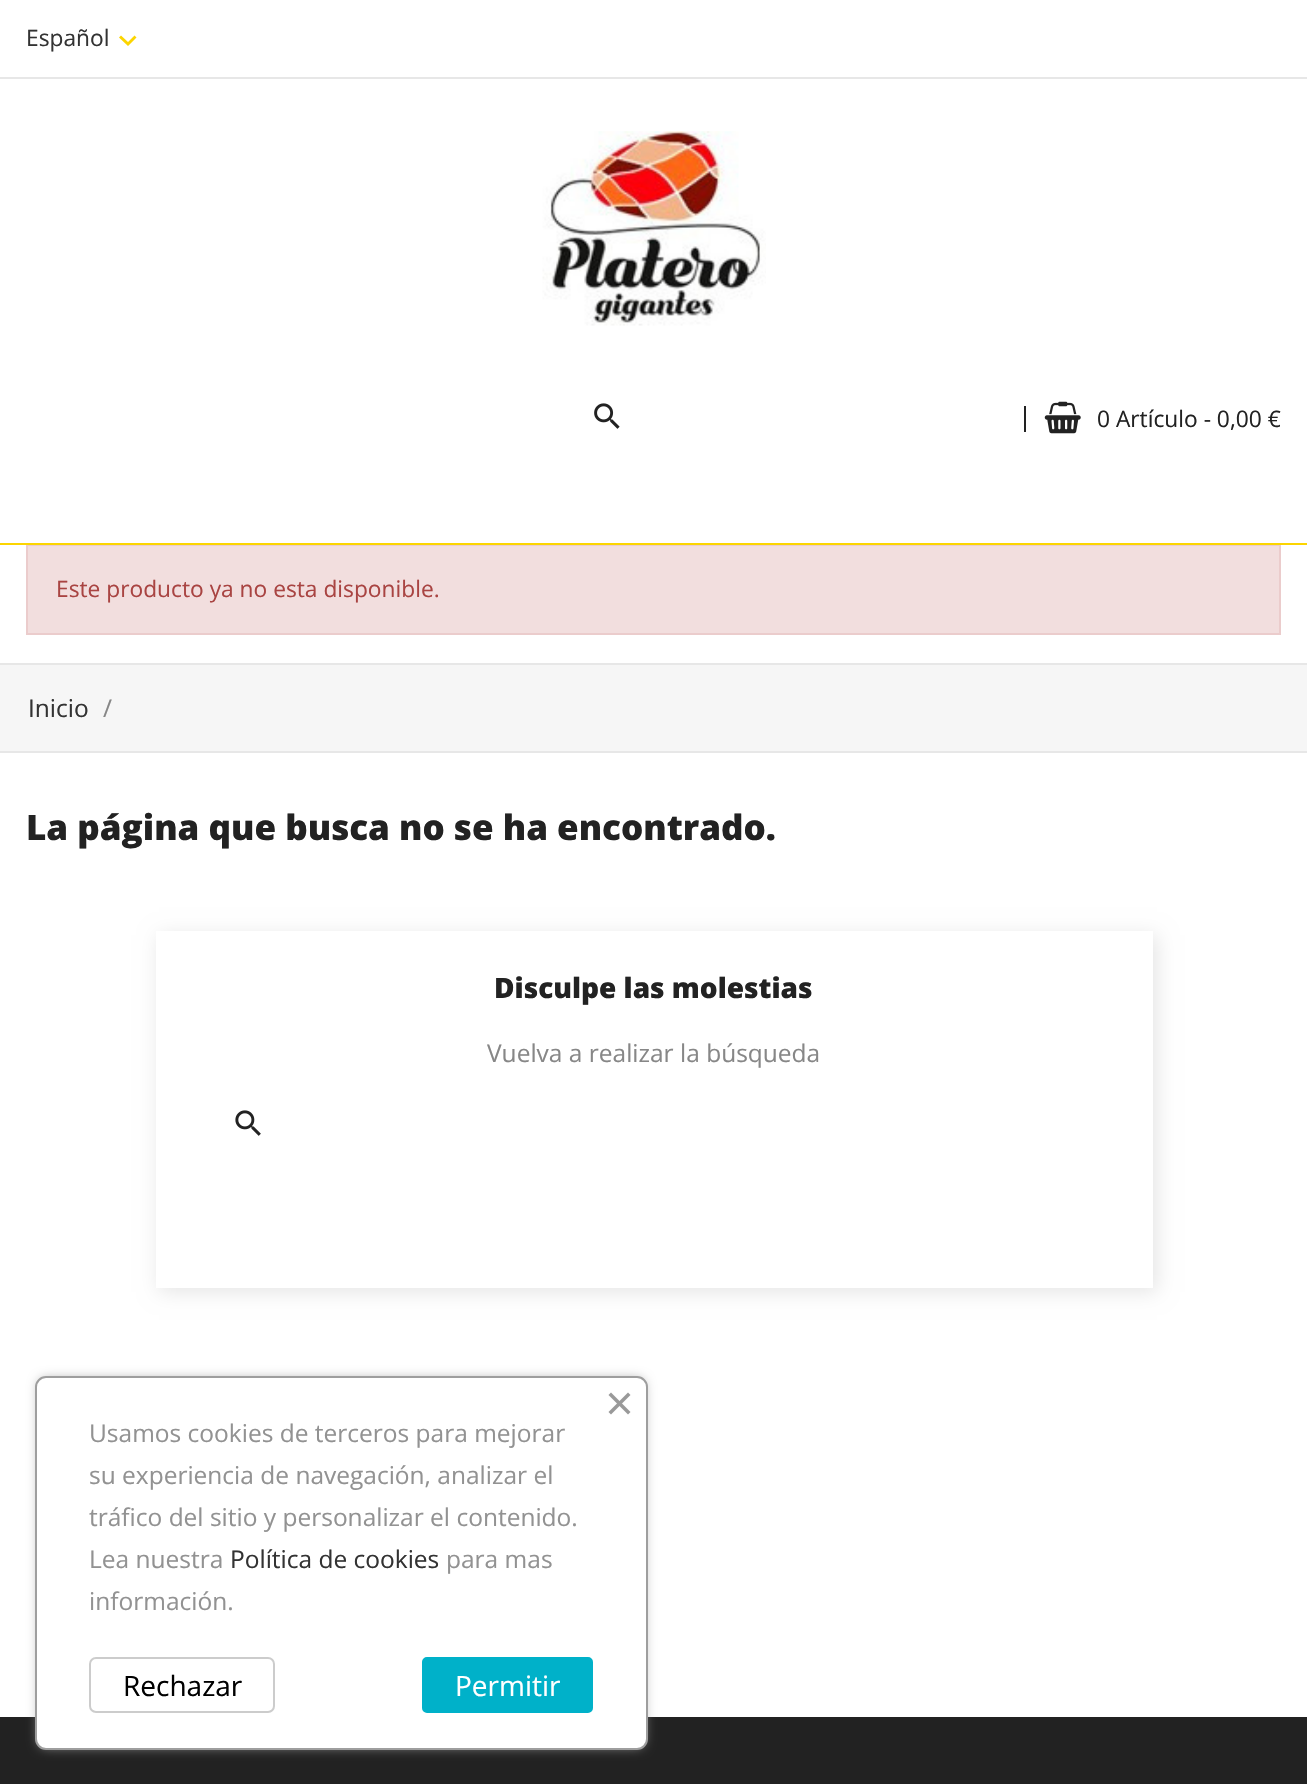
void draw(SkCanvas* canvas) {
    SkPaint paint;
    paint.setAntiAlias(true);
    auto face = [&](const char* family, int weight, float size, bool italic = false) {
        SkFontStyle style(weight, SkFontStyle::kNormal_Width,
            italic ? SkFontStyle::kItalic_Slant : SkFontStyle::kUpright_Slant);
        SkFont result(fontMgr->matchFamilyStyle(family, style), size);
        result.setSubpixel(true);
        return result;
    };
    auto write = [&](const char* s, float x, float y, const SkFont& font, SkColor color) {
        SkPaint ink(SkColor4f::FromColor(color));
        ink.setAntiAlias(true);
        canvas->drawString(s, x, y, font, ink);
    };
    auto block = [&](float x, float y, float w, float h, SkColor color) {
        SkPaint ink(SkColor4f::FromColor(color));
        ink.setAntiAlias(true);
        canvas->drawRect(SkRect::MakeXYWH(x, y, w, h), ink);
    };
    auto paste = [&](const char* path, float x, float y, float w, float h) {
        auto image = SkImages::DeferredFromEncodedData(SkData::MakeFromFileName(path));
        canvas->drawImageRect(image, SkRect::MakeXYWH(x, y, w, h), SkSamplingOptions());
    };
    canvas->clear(SK_ColorWHITE);
    block(0, 77, 1307, 2, SkColorSetRGB(231, 231, 231));
    auto kFont1 = face("Open Sans", 400, 22.75f);
    write("Español", 26, 46, kFont1, SkColorSetRGB(51, 51, 51));
    paint.setColor(SkColorSetRGB(252, 213, 0));
    canvas->drawPath(SkPathBuilder().moveTo(134.5f, 35.5f).lineTo(136.5f, 37.5f).lineTo(128, 46).lineTo(119, 37.5f).lineTo(121, 35.5f).lineTo(128, 42).close().detach(), paint);
    paste("pic1.png", 542, 131, 224, 195);
    paste("pic2.png", 594, 403, 26, 26);
    block(1024, 406, 2, 26, SkColorSetRGB(34, 34, 34));
    paste("pic3.png", 1044, 401, 37, 33);
    write("0 Artículo - 0,00 €", 1097, 427, kFont1, SkColorSetRGB(34, 34, 34));
    paint.setColor(SkColorSetRGB(242, 222, 222));
    canvas->drawRect(SkRect::MakeXYWH(27, 545, 1253, 89), paint);
    paint.setStyle(SkPaint::kStroke_Style);
    paint.setStrokeWidth(2);
    paint.setColor(SkColorSetRGB(235, 204, 204));
    canvas->drawRect(SkRect::MakeXYWH(27, 545, 1253, 89), paint);
    block(0, 543, 1307, 2, SkColorSetRGB(252, 213, 0));
    write("Este producto ya no esta disponible.", 56, 597, kFont1, SkColorSetRGB(169, 68, 66));
    block(0, 665, 1307, 86, SkColorSetRGB(246, 246, 246));
    block(0, 663, 1307, 2, SkColorSetRGB(231, 231, 231));
    block(0, 751, 1307, 2, SkColorSetRGB(231, 231, 231));
    auto kFont2 = face("Open Sans", 400, 24.5f);
    write("Inicio", 28, 717, kFont2, SkColorSetRGB(51, 51, 51));
    write("/", 103, 717, kFont2, SkColorSetRGB(135, 135, 135));
    auto kFont3 = face("Open Sans", 800, 35);
    write("La página que busca no se ha encontrado.", 26, 840, kFont3, SkColorSetRGB(34, 34, 34));
    canvas->save();
    canvas->clipPath(SkPathBuilder(SkPathFillType::kEvenOdd).moveTo(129, 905).lineTo(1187, 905).lineTo(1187, 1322).lineTo(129, 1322).close().moveTo(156, 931).lineTo(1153, 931).lineTo(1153, 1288).lineTo(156, 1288).close().detach(), true);
    paint.setStyle(SkPaint::kFill_Style);
    paint.setColor(SkColorSetARGB(26, 0, 0, 0));
    paint.setMaskFilter(SkMaskFilter::MakeBlur(kNormal_SkBlurStyle, 9.5f));
    canvas->drawRect(SkRect::MakeXYWH(159, 935, 998, 357), paint);
    paint.setMaskFilter(nullptr);
    canvas->restore();
    auto kFont4 = face("Open Sans", 800, 28);
    write("Disculpe las molestias", 494, 998, kFont4, SkColorSetRGB(34, 34, 34));
    write("Vuelva a realizar la búsqueda", 487, 1062, kFont2, SkColorSetRGB(135, 135, 135));
    paste("pic4.png", 235, 1110, 26, 26);
    block(0, 1717, 1307, 67, SkColorSetRGB(34, 34, 34));
    paint.setColor(SkColorSetRGB(158, 158, 158));
    paint.setMaskFilter(SkMaskFilter::MakeBlur(kNormal_SkBlurStyle, 6));
    canvas->drawRoundRect(SkRect::MakeXYWH(39, 1379, 605, 368), 7, 7, paint);
    paint.setMaskFilter(nullptr);
    paint.setColor(SK_ColorWHITE);
    canvas->drawRoundRect(SkRect::MakeXYWH(36, 1377, 611, 372), 10, 10, paint);
    paint.setStyle(SkPaint::kStroke_Style);
    paint.setColor(SkColorSetRGB(158, 158, 158));
    canvas->drawRoundRect(SkRect::MakeXYWH(36, 1377, 611, 372), 10, 10, paint);
    paint.setStyle(SkPaint::kFill_Style);
    paint.setColor(SkColorSetRGB(153, 153, 153));
    canvas->drawPath(SkPathBuilder().moveTo(608.5f, 1412).lineTo(628, 1392.5f).lineTo(630.5f, 1395).lineTo(611, 1414.5f).close().detach(), paint);
    canvas->drawPath(SkPathBuilder().moveTo(611, 1392.5f).lineTo(630.5f, 1412).lineTo(628, 1414.5f).lineTo(608.5f, 1395).close().detach(), paint);
    write("Usamos cookies de terceros para mejorar", 89, 1442, kFont2, SkColorSetRGB(146, 146, 146));
    write("su experiencia de navegación, analizar el", 89, 1484, kFont2, SkColorSetRGB(146, 146, 146));
    write("tráfico del sitio y personalizar el contenido.", 89, 1526, kFont2, SkColorSetRGB(146, 146, 146));
    write("Lea nuestra", 89, 1568, kFont2, SkColorSetRGB(146, 146, 146));
    write("Política de cookies", 230, 1568, kFont2, SkColorSetRGB(51, 51, 51));
    write("para mas", 446, 1568, kFont2, SkColorSetRGB(146, 146, 146));
    write("información.", 89, 1610, kFont2, SkColorSetRGB(146, 146, 146));
    paint.setStyle(SkPaint::kStroke_Style);
    paint.setColor(SkColorSetRGB(204, 204, 204));
    canvas->drawRoundRect(SkRect::MakeXYWH(90, 1658, 184, 54), 6, 6, paint);
    auto kFont5 = face("Open Sans", 400, 28);
    write("Rechazar", 123, 1696, kFont5, SK_ColorBLACK);
    paint.setStyle(SkPaint::kFill_Style);
    paint.setColor(SkColorSetRGB(0, 177, 201));
    canvas->drawRoundRect(SkRect::MakeXYWH(423, 1658, 169, 54), 4, 4, paint);
    paint.setStyle(SkPaint::kStroke_Style);
    canvas->drawRoundRect(SkRect::MakeXYWH(423, 1658, 169, 54), 4, 4, paint);
    write("Permitir", 455, 1696, kFont5, SK_ColorWHITE);
}
